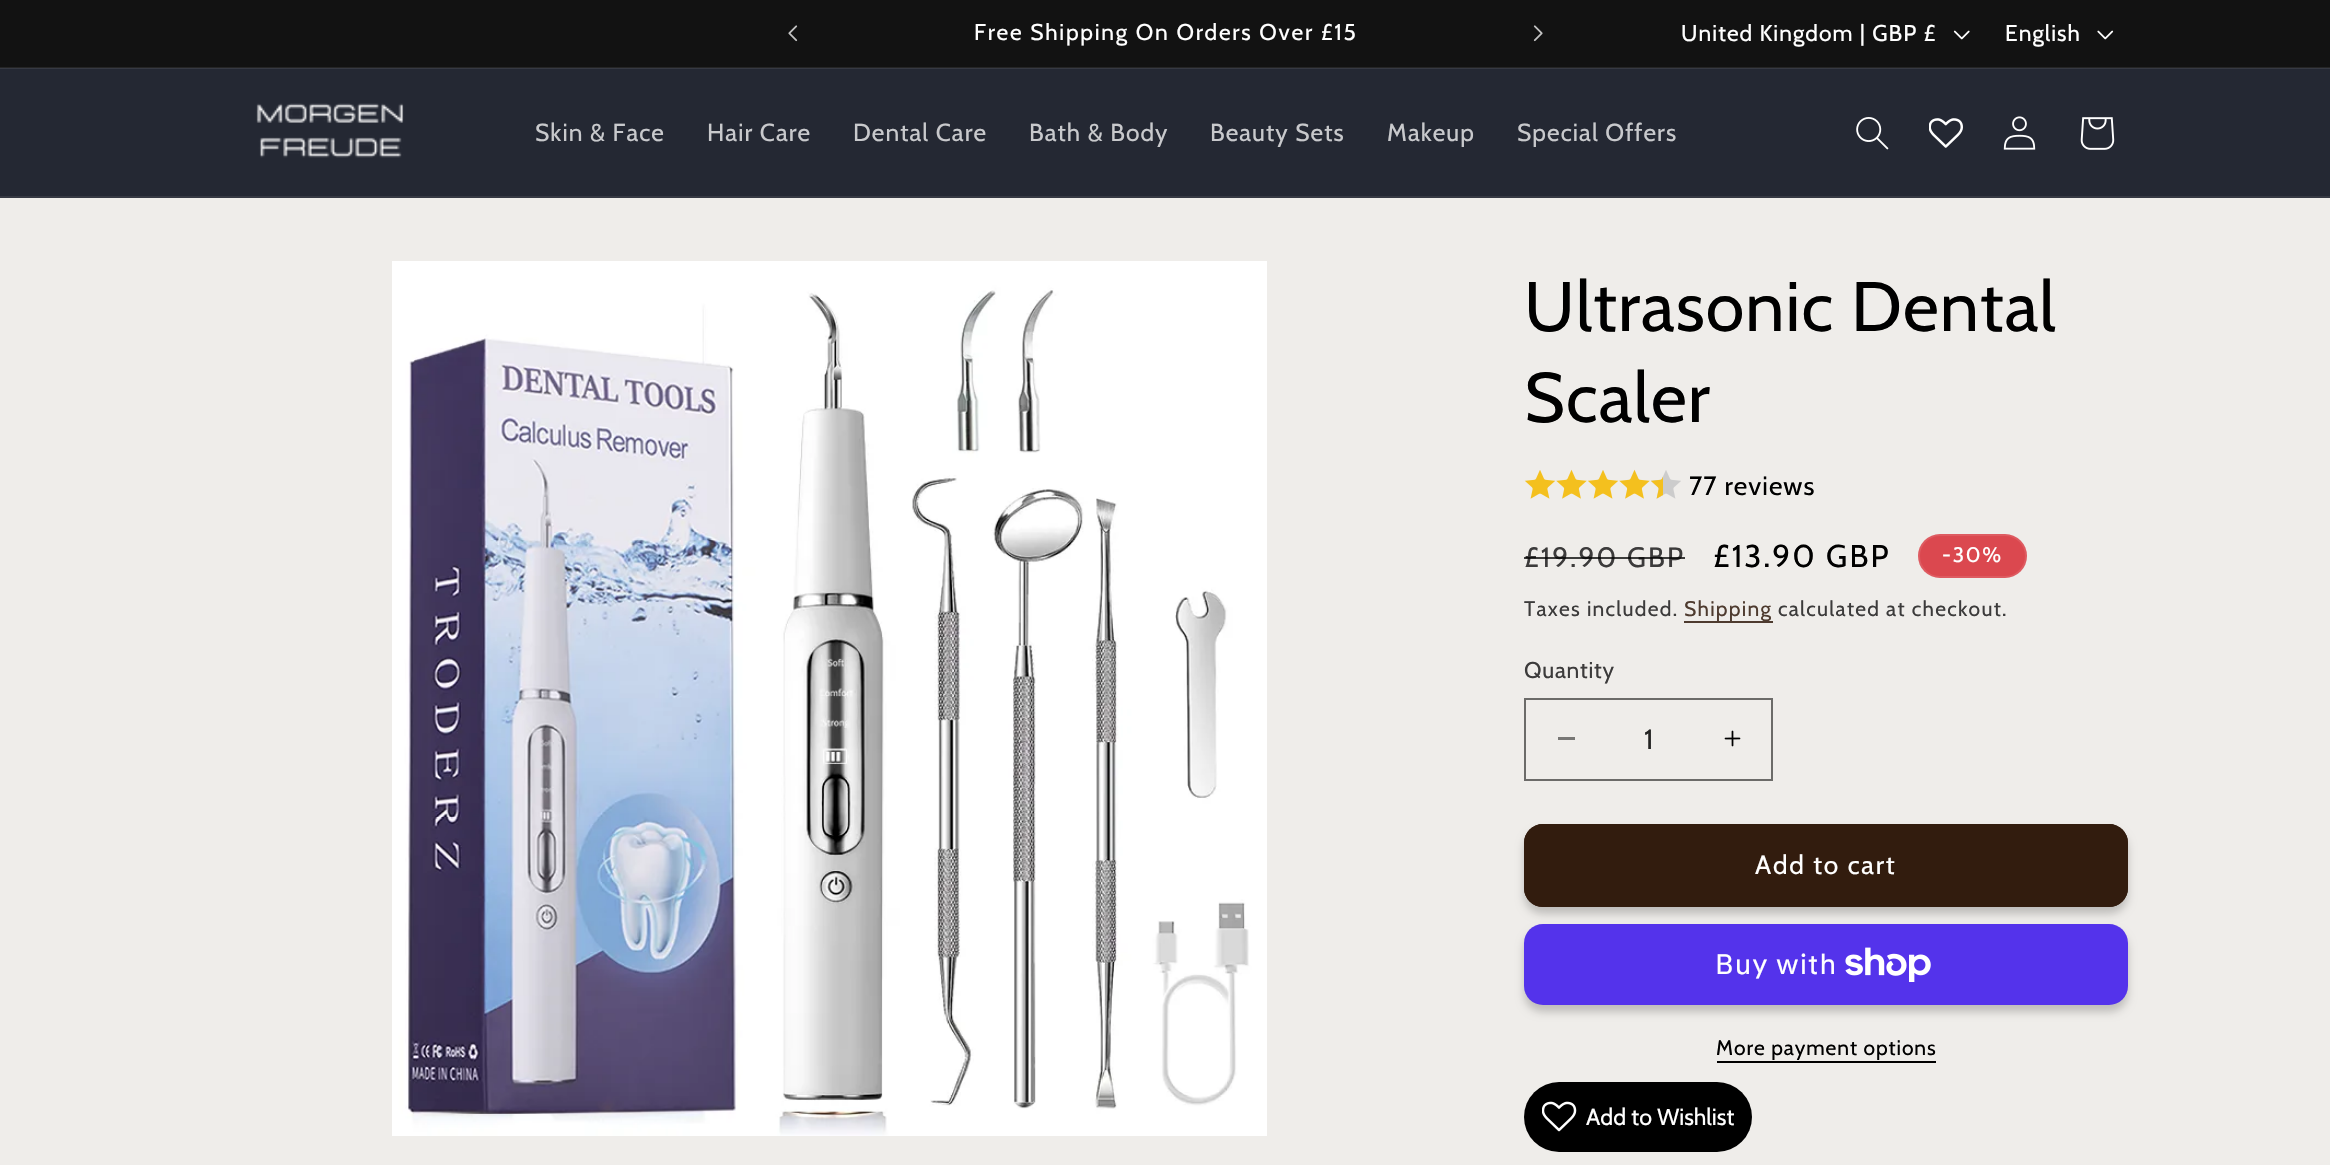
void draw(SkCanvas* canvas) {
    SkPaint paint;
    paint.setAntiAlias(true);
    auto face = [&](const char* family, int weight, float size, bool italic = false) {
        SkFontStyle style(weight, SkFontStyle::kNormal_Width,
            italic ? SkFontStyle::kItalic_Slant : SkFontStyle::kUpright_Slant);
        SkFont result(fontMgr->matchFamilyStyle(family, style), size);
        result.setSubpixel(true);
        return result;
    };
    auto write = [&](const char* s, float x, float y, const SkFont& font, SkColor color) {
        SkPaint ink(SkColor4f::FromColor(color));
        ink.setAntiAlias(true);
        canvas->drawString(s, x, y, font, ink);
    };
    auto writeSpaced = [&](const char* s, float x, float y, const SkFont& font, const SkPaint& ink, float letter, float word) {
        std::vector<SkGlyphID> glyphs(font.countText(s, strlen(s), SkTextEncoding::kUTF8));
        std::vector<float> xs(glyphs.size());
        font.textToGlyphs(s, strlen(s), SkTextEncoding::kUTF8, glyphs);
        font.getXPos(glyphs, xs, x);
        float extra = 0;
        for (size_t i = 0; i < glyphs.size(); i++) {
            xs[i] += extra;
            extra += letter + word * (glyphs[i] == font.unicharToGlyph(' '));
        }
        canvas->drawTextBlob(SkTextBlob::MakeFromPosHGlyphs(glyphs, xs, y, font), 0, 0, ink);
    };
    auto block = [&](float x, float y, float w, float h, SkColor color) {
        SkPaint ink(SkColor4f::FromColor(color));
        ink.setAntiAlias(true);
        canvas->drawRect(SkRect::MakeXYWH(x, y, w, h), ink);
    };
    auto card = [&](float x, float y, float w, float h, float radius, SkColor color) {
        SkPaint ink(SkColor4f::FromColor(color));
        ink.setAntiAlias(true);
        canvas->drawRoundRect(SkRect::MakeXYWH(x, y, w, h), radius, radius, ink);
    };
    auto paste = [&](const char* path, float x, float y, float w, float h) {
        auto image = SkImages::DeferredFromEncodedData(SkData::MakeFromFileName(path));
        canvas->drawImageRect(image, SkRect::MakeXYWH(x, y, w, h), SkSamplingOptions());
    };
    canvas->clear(SkColorSetRGB(239, 237, 234));
    block(0, 0, 2330, 67, SkColorSetRGB(18, 18, 18));
    block(0, 67, 2330, 1, SkColorSetRGB(37, 37, 37));
    paste("pic1.png", 788, 25, 10, 17);
    auto kFont1 = face("Cabin", 400, 22.75f);
    paint.setColor(SK_ColorWHITE);
    writeSpaced("Free Shipping On Orders Over £15", 974, 40, kFont1, paint, 1.75f, 0);
    paste("pic2.png", 1533, 25, 10, 17);
    writeSpaced("United Kingdom | GBP £", 1681, 41, kFont1, paint, 1.05f, 0);
    paste("pic3.png", 1953, 30, 17, 10);
    writeSpaced("English", 2005, 41, kFont1, paint, 1.05f, 0);
    paste("pic4.png", 2097, 30, 17, 10);
    block(0, 69, 2330, 127, SkColorSetRGB(36, 40, 51));
    block(0, 68, 2330, 1, SkColorSetRGB(54, 57, 67));
    block(0, 196, 2330, 2, SkColorSetRGB(54, 57, 67));
    paste("pic5.png", 256, 103, 148, 55);
    auto kFont2 = face("Cabin", 400, 24.5f);
    paint.setColor(SkColorSetRGB(200, 201, 204));
    writeSpaced("Skin & Face", 535, 141, kFont2, paint, 1.05f, 0);
    writeSpaced("Hair Care", 707, 141, kFont2, paint, 1.05f, 0);
    writeSpaced("Dental Care", 853, 141, kFont2, paint, 1.05f, 0);
    writeSpaced("Bath & Body", 1029, 141, kFont2, paint, 1.05f, 0);
    writeSpaced("Beauty Sets", 1210, 141, kFont2, paint, 1.05f, 0);
    writeSpaced("Makeup", 1387, 141, kFont2, paint, 1.05f, 0);
    writeSpaced("Special Offers", 1517, 141, kFont2, paint, 1.05f, 0);
    paste("pic6.png", 1856, 117, 33, 33);
    paste("pic7.png", 1929, 118, 34, 30);
    paste("pic8.png", 2003, 116, 33, 34);
    paste("pic9.png", 2080, 117, 35, 33);
    paste("pic10.png", 392, 261, 875, 875);
    auto kFont3 = face("Cabin", 400, 70);
    paint.setColor(SK_ColorBLACK);
    writeSpaced("Ultrasonic Dental", 1524, 331, kFont3, paint, 1.05f, 0);
    writeSpaced("Scaler", 1524, 422, kFont3, paint, 1.05f, 0);
    paste("pic11.png", 1524, 470, 32, 29);
    paste("pic12.png", 1556, 469, 31, 30);
    paste("pic11.png", 1587, 470, 32, 29);
    paste("pic12.png", 1619, 469, 31, 30);
    paste("pic13.png", 1651, 470, 30, 29);
    paste("pic14.png", 1650, 476, 13, 23);
    auto kFont4 = face("Cabin", 400, 26.25f);
    writeSpaced("77 reviews", 1689, 495, kFont4, paint, 1.05f, 0);
    auto kFont5 = face("Cabin", 400, 28);
    paint.setColor(SkColorSetRGB(60, 59, 59));
    writeSpaced("£19.90 GBP", 1524, 567, kFont5, paint, 2.25f, 0);
    block(1524, 557, 161, 2, SkColorSetARGB(191, 0, 0, 0));
    auto kFont6 = face("Cabin", 400, 31.5f);
    paint.setColor(SK_ColorBLACK);
    writeSpaced("£13.90 GBP", 1713, 567, kFont6, paint, 2.25f, 0);
    card(1918, 534, 109, 44, 22, SkColorSetRGB(219, 72, 79));
    paint.setStyle(SkPaint::kStroke_Style);
    paint.setStrokeWidth(2);
    paint.setColor(SkColorSetARGB(26, 255, 255, 255));
    canvas->drawRoundRect(SkRect::MakeXYWH(1919, 535, 107, 42), 21, 21, paint);
    auto kFont7 = face("Cabin", 400, 21);
    paint.setStyle(SkPaint::kFill_Style);
    paint.setColor(SK_ColorWHITE);
    writeSpaced("-30%", 1942, 562, kFont7, paint, 1.75f, 0);
    paint.setColor(SkColorSetRGB(60, 59, 59));
    writeSpaced("Taxes included.", 1524, 616, kFont7, paint, 1.25f, 0);
    block(1684, 621, 89, 2, SkColorSetRGB(78, 59, 47));
    paint.setColor(SkColorSetRGB(78, 59, 47));
    writeSpaced("Shipping", 1684, 616, kFont7, paint, 1.25f, 0);
    paint.setColor(SkColorSetRGB(60, 59, 59));
    writeSpaced("calculated at checkout.", 1778, 616, kFont7, paint, 1.25f, 0);
    writeSpaced("Quantity", 1524, 678, kFont1, paint, 0.75f, 0);
    block(1558, 737, 17, 3, SkColorSetRGB(120, 119, 117));
    paste("pic15.png", 1724, 730, 17, 17);
    paint.setStyle(SkPaint::kStroke_Style);
    paint.setColor(SkColorSetRGB(108, 107, 105));
    canvas->drawRect(SkRect::MakeXYWH(1525, 699, 247, 81), paint);
    write("1", 1644, 749, kFont5, SkColorSetRGB(36, 36, 35));
    paint.setStyle(SkPaint::kFill_Style);
    paint.setColor(SkColorSetARGB(51, 0, 0, 0));
    paint.setMaskFilter(SkMaskFilter::MakeBlur(kNormal_SkBlurStyle, 4.5f));
    canvas->drawRoundRect(SkRect::MakeXYWH(1524, 831, 604, 83), 19, 19, paint);
    paint.setMaskFilter(nullptr);
    card(1524, 824, 604, 83, 19, SkColorSetRGB(50, 28, 14));
    paint.setStyle(SkPaint::kStroke_Style);
    paint.setColor(SkColorSetRGB(50, 28, 14));
    canvas->drawRoundRect(SkRect::MakeXYWH(1525, 825, 602, 81), 18, 18, paint);
    paint.setStyle(SkPaint::kFill_Style);
    paint.setColor(SK_ColorWHITE);
    writeSpaced("Add to cart", 1755, 874, kFont4, paint, 1.75f, 0);
    paint.setColor(SkColorSetARGB(51, 0, 0, 0));
    paint.setMaskFilter(SkMaskFilter::MakeBlur(kNormal_SkBlurStyle, 4.5f));
    canvas->drawRoundRect(SkRect::MakeXYWH(1524, 931, 604, 81), 19, 19, paint);
    paint.setMaskFilter(nullptr);
    card(1524, 924, 604, 81, 19, SkColorSetRGB(84, 51, 235));
    auto kFont8 = face("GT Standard", 400, 28);
    paint.setColor(SK_ColorWHITE);
    writeSpaced("Buy with", 1715, 974, kFont8, paint, 1.05f, 0);
    paste("pic16.png", 1845, 947, 86, 35);
    paint.setColor(SK_ColorBLACK);
    writeSpaced("More payment options", 1716, 1055, kFont7, paint, 0.9f, 0);
    block(1717, 1061, 219, 2, SK_ColorBLACK);
    card(1524, 1082, 228, 70, 35, SK_ColorBLACK);
    paste("pic17.png", 1542, 1101, 35, 31);
    auto kFont9 = face("Cabin", 400, 23.25f);
    write("Add to Wishlist", 1586, 1125, kFont9, SK_ColorWHITE);
}
